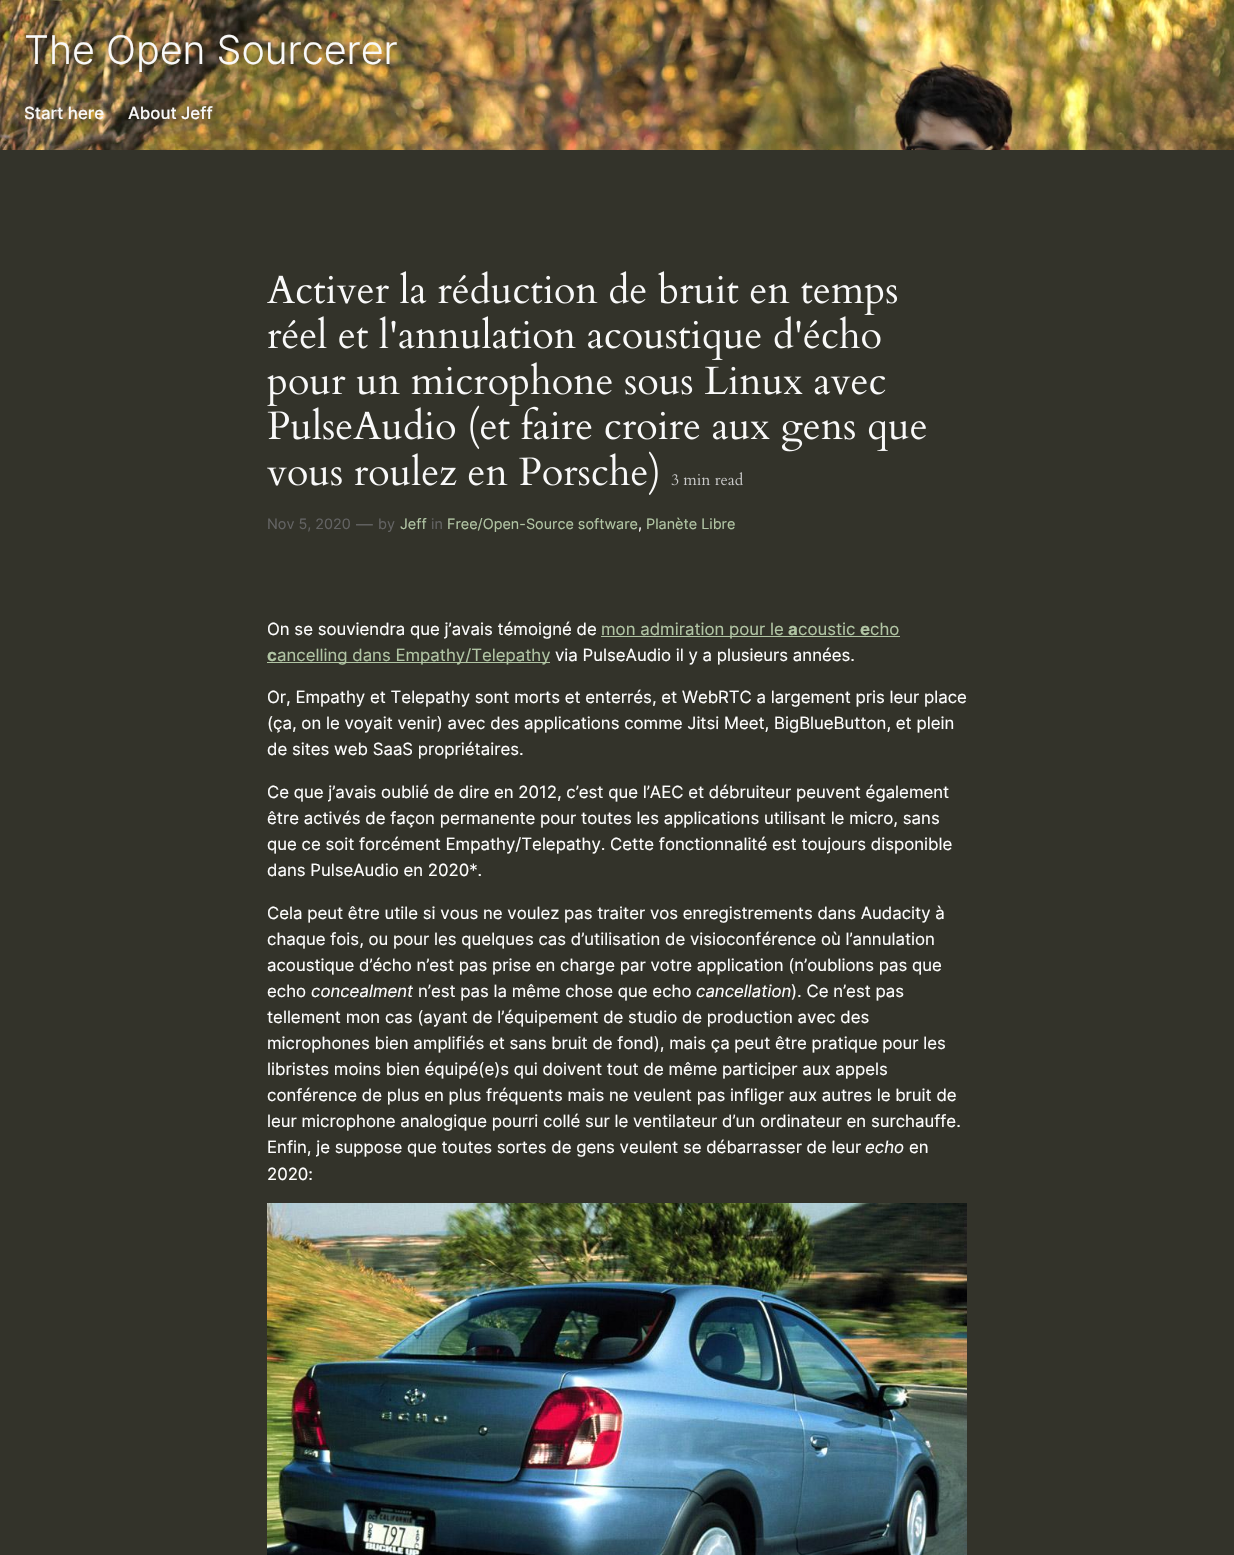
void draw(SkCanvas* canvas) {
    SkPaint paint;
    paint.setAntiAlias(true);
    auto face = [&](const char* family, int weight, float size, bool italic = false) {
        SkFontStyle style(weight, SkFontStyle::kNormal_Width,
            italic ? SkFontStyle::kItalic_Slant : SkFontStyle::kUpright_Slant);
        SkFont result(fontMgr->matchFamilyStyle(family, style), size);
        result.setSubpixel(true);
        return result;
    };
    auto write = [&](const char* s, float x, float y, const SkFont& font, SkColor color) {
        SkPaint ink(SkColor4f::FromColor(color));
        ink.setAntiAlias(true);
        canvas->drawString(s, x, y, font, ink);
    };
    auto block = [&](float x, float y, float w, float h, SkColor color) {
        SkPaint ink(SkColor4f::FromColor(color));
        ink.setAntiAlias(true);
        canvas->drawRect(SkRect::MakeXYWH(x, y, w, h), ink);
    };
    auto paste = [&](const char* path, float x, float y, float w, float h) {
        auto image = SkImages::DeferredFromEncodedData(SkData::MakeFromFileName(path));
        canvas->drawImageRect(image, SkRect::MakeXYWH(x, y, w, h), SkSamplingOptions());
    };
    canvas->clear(SkColorSetRGB(51, 51, 42));
    paste("pic1.png", 0, 0, 1234, 150);
    auto kFont1 = face("Inter", 300, 39.5f);
    write("The Open Sourcerer", 24, 64, kFont1, SkColorSetRGB(249, 249, 249));
    auto kFont2 = face("Inter", 500, 16.8f);
    write("Start here", 24, 119, kFont2, SkColorSetRGB(249, 249, 249));
    write("About Jeff", 128, 119, kFont2, SkColorSetRGB(249, 249, 249));
    paste("pic2.png", 267, 271, 631, 44);
    paste("pic3.png", 268, 316, 613, 44);
    paste("pic4.png", 267, 362, 619, 44);
    paste("pic5.png", 267, 405, 659, 47);
    paste("pic6.png", 267, 451, 391, 44);
    paste("pic7.png", 671, 474, 8, 12);
    paste("pic8.png", 683, 472, 60, 14);
    auto kFont3 = face("Inter", 400, 14.4f);
    write("Nov 5, 2020", 267, 529, kFont3, SkColorSetRGB(99, 99, 99));
    auto kFont4 = face("Inter", 400, 16.8f);
    write("—", 356, 530, kFont4, SkColorSetRGB(99, 99, 99));
    write("by", 378, 529, kFont3, SkColorSetRGB(99, 99, 99));
    write("Jeff", 400, 529, kFont3, SkColorSetRGB(177, 197, 164));
    write("in", 431, 529, kFont3, SkColorSetRGB(99, 99, 99));
    write("Free/Open-Source software", 447, 529, kFont3, SkColorSetRGB(177, 197, 164));
    write(",", 638, 529, kFont3, SK_ColorWHITE);
    write("Planète Libre", 646, 529, kFont3, SkColorSetRGB(177, 197, 164));
    write("On se souviendra que j’avais témoigné de", 267, 635, kFont4, SK_ColorWHITE);
    block(601, 636, 299, 1, SkColorSetRGB(177, 197, 164));
    write("mon admiration pour le", 601, 635, kFont4, SkColorSetRGB(177, 197, 164));
    auto kFont5 = face("Inter", 700, 16.8f);
    write("a", 788, 635, kFont5, SkColorSetRGB(177, 197, 164));
    write("coustic", 798, 635, kFont4, SkColorSetRGB(177, 197, 164));
    write("e", 860, 635, kFont5, SkColorSetRGB(177, 197, 164));
    write("cho", 870, 635, kFont4, SkColorSetRGB(177, 197, 164));
    write("c", 267, 661, kFont5, SkColorSetRGB(177, 197, 164));
    block(267, 662, 283, 1, SkColorSetRGB(177, 197, 164));
    write("ancelling dans Empathy/Telepathy", 277, 661, kFont4, SkColorSetRGB(177, 197, 164));
    write("via PulseAudio il y a plusieurs années.", 555, 661, kFont4, SK_ColorWHITE);
    write("Or, Empathy et Telepathy sont morts et enterrés, et WebRTC a largement pris leur place", 267, 703, kFont4, SK_ColorWHITE);
    write("(ça, on le voyait venir) avec des applications comme Jitsi Meet, BigBlueButton, et plein", 267, 729, kFont4, SK_ColorWHITE);
    write("de sites web SaaS propriétaires.", 267, 755, kFont4, SK_ColorWHITE);
    write("Ce que j’avais oublié de dire en 2012, c’est que l’AEC et débruiteur peuvent également", 267, 798, kFont4, SK_ColorWHITE);
    write("être activés de façon permanente pour toutes les applications utilisant le micro, sans", 267, 824, kFont4, SK_ColorWHITE);
    write("que ce soit forcément Empathy/Telepathy. Cette fonctionnalité est toujours disponible", 267, 850, kFont4, SK_ColorWHITE);
    write("dans PulseAudio en 2020*.", 267, 876, kFont4, SK_ColorWHITE);
    write("Cela peut être utile si vous ne voulez pas traiter vos enregistrements dans Audacity à", 267, 919, kFont4, SK_ColorWHITE);
    write("chaque fois, ou pour les quelques cas d’utilisation de visioconférence où l’annulation", 267, 945, kFont4, SK_ColorWHITE);
    write("acoustique d’écho n’est pas prise en charge par votre application (n’oublions pas que", 267, 971, kFont4, SK_ColorWHITE);
    write("echo", 267, 997, kFont4, SK_ColorWHITE);
    auto kFont6 = face("Inter", 400, 16.8f, true);
    write("concealment", 311, 997, kFont6, SK_ColorWHITE);
    write("n’est pas la même chose que echo", 418, 997, kFont4, SK_ColorWHITE);
    write("cancellation", 696, 997, kFont6, SK_ColorWHITE);
    write("). Ce n’est pas", 791, 997, kFont4, SK_ColorWHITE);
    write("tellement mon cas (ayant de l’équipement de studio de production avec des", 267, 1023, kFont4, SK_ColorWHITE);
    write("microphones bien amplifiés et sans bruit de fond), mais ça peut être pratique pour les", 267, 1049, kFont4, SK_ColorWHITE);
    write("libristes moins bien équipé(e)s qui doivent tout de même participer aux appels", 267, 1075, kFont4, SK_ColorWHITE);
    write("conférence de plus en plus fréquents mais ne veulent pas infliger aux autres le bruit de", 267, 1101, kFont4, SK_ColorWHITE);
    write("leur microphone analogique pourri collé sur le ventilateur d’un ordinateur en surchauffe.", 267, 1127, kFont4, SK_ColorWHITE);
    write("Enfin, je suppose que toutes sortes de gens veulent se débarrasser de leur", 267, 1153, kFont4, SK_ColorWHITE);
    write("echo", 865, 1153, kFont6, SK_ColorWHITE);
    write("en", 909, 1153, kFont4, SK_ColorWHITE);
    write("2020:", 267, 1180, kFont4, SK_ColorWHITE);
    paste("pic9.png", 267, 1203, 700, 352);
}
